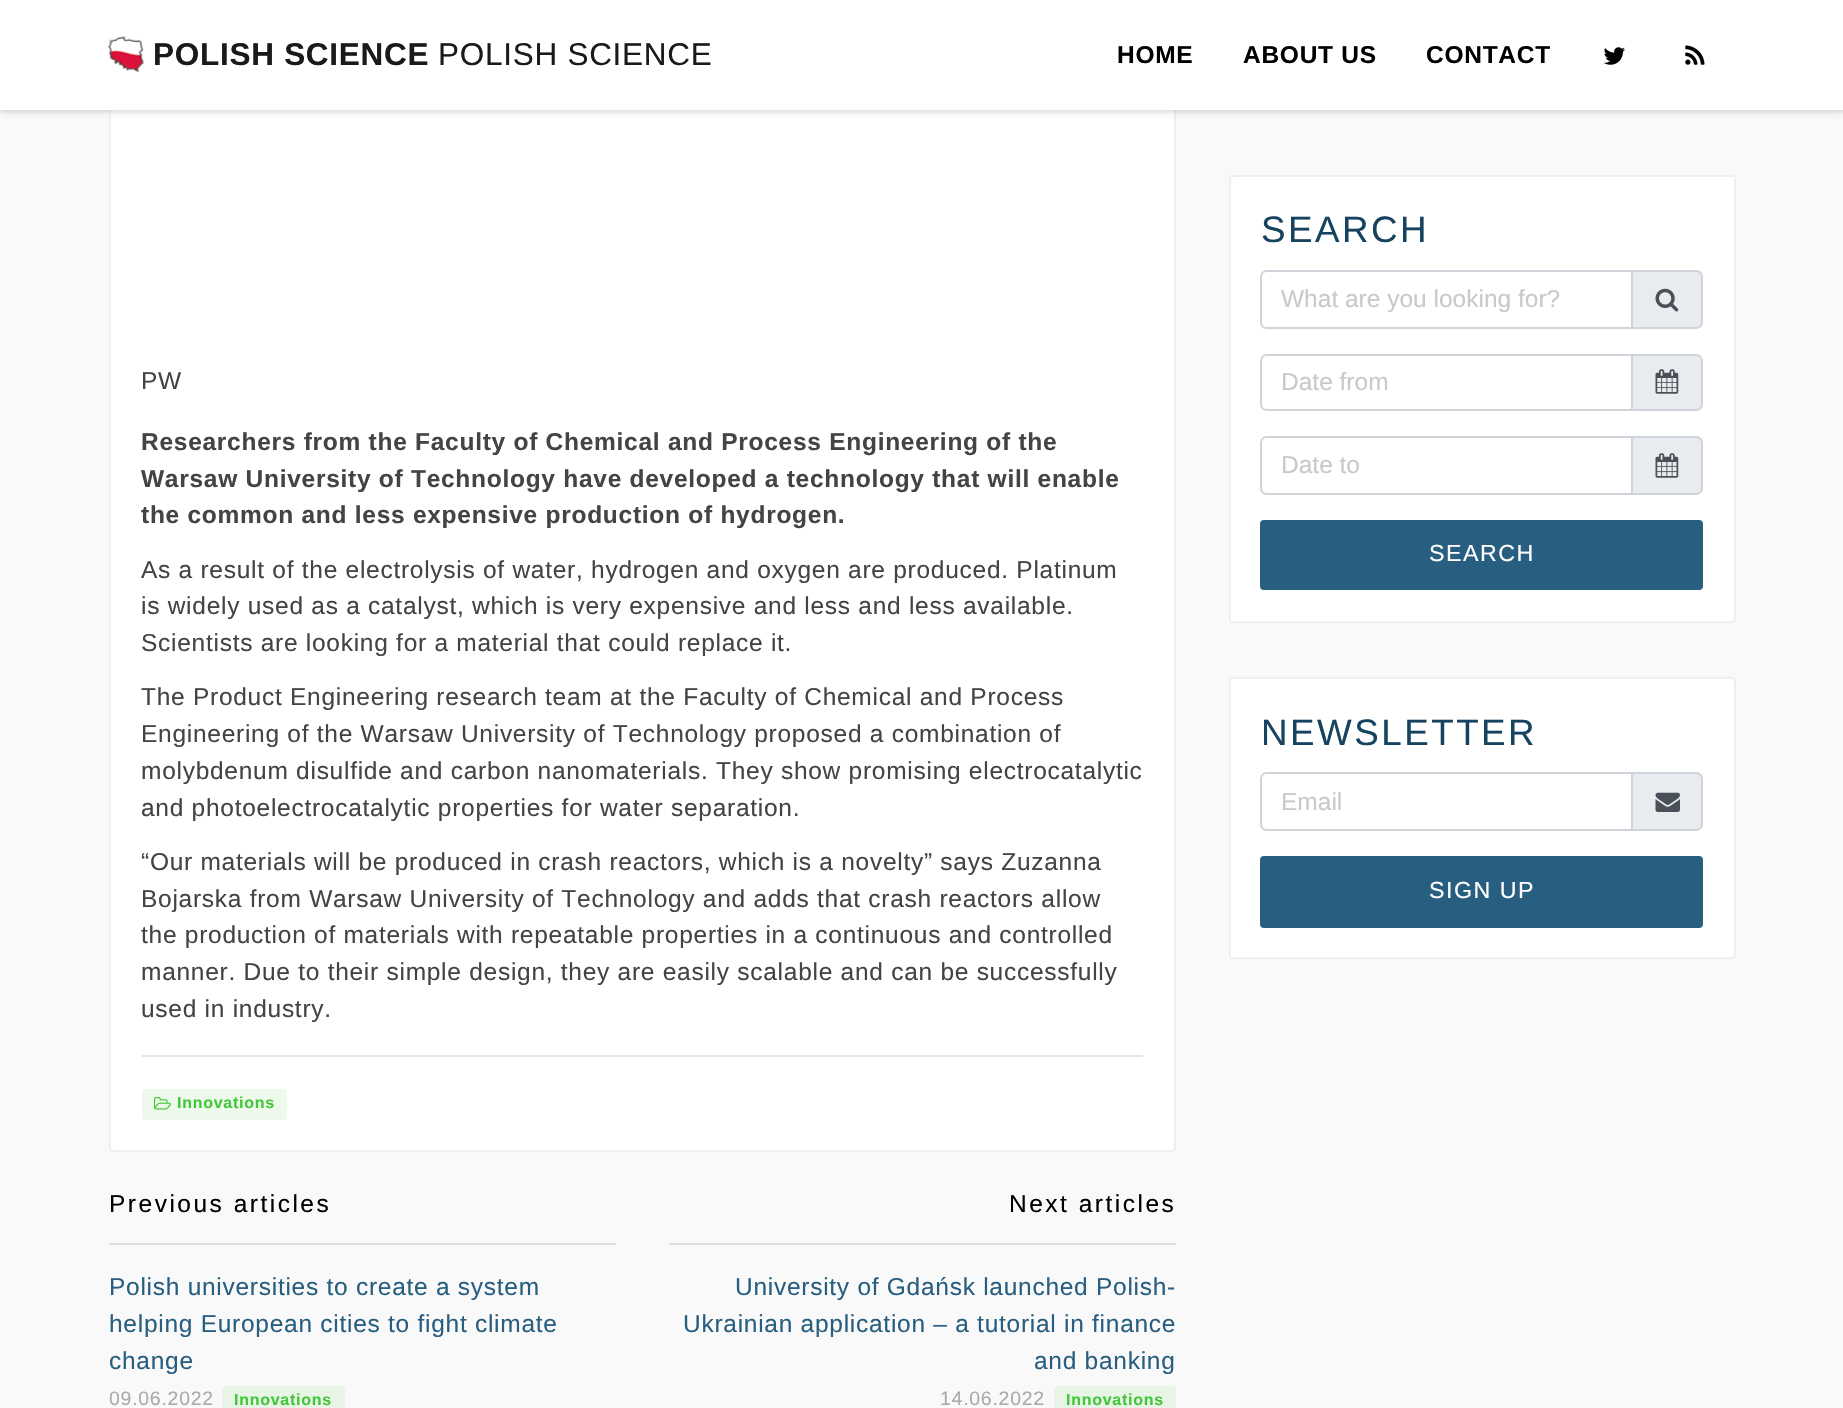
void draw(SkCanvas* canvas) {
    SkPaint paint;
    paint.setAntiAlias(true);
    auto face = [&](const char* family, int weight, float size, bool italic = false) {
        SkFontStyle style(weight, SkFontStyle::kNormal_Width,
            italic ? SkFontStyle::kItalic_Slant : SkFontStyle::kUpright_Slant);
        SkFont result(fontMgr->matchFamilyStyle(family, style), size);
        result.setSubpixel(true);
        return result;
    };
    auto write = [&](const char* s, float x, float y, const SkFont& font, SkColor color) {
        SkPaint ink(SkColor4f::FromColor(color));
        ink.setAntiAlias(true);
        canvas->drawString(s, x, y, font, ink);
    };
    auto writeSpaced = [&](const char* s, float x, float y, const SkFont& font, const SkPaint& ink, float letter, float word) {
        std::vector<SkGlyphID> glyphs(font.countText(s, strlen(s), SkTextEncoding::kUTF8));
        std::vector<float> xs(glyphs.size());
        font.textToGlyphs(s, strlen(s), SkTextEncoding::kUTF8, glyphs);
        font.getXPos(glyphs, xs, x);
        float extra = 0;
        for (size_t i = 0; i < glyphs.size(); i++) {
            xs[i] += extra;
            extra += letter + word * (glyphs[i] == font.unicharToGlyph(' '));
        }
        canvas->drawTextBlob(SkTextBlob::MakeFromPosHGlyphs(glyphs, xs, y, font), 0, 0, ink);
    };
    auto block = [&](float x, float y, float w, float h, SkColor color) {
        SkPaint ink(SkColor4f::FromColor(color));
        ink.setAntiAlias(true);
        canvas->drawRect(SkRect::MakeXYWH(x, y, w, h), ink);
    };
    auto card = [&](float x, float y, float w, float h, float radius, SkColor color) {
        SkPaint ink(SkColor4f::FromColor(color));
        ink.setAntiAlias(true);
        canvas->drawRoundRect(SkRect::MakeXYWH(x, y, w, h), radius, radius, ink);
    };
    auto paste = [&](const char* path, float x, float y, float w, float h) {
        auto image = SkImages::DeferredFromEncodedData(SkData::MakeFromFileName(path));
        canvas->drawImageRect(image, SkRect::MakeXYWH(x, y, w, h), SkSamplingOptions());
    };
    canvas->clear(SkColorSetRGB(249, 249, 249));
    paint.setColor(SK_ColorWHITE);
    canvas->drawRoundRect(SkRect::MakeXYWH(110, -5, 1065, 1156), 3, 3, paint);
    paint.setStyle(SkPaint::kStroke_Style);
    paint.setStrokeWidth(2);
    paint.setColor(SkColorSetRGB(238, 239, 239));
    canvas->drawRoundRect(SkRect::MakeXYWH(110, -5, 1065, 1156), 3, 3, paint);
    paint.setStyle(SkPaint::kFill_Style);
    paint.setColor(SkColorSetARGB(26, 0, 0, 0));
    paint.setMaskFilter(SkMaskFilter::MakeBlur(kNormal_SkBlurStyle, 2.5f));
    canvas->drawRect(SkRect::MakeXYWH(0, 2, 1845, 110), paint);
    paint.setMaskFilter(nullptr);
    paint.setColor(SkColorSetARGB(13, 0, 0, 0));
    paint.setMaskFilter(SkMaskFilter::MakeBlur(kNormal_SkBlurStyle, 2.5f));
    canvas->drawRect(SkRect::MakeXYWH(0, 2, 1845, 110), paint);
    paint.setMaskFilter(nullptr);
    block(0, 0, 1843, 110, SK_ColorWHITE);
    paste("pic1.png", 108, 36, 36, 36);
    auto kFont1 = face("Liberation Sans", 700, 31.5f);
    paint.setColor(SkColorSetRGB(26, 26, 26));
    writeSpaced("POLISH SCIENCE", 153, 65, kFont1, paint, 0.73f, 0);
    auto kFont2 = face("Liberation Sans", 400, 31.5f);
    writeSpaced("POLISH SCIENCE", 438, 65, kFont2, paint, 0.73f, 0);
    auto kFont3 = face("Liberation Sans", 700, 24.5f);
    paint.setColor(SK_ColorBLACK);
    writeSpaced("HOME", 1117, 63, kFont3, paint, 0.73f, 0);
    writeSpaced("ABOUT US", 1243, 63, kFont3, paint, 0.73f, 0);
    writeSpaced("CONTACT", 1426, 63, kFont3, paint, 0.73f, 0);
    paste("pic2.png", 1603, 47, 22, 18);
    paste("pic3.png", 1685, 45, 20, 20);
    auto kFont4 = face("Liberation Sans", 400, 24.5f);
    paint.setColor(SkColorSetRGB(68, 68, 68));
    writeSpaced("PW", 141, 389, kFont4, paint, 0.73f, 0);
    writeSpaced("Researchers from the Faculty of Chemical and Process Engineering of the", 141, 450, kFont3, paint, 0.73f, 0);
    writeSpaced("Warsaw University of Technology have developed a technology that will enable", 141, 487, kFont3, paint, 0.73f, 0);
    writeSpaced("the common and less expensive production of hydrogen.", 141, 523, kFont3, paint, 0.73f, 0);
    writeSpaced("As a result of the electrolysis of water, hydrogen and oxygen are produced. Platinum", 141, 578, kFont4, paint, 0.73f, 0);
    writeSpaced("is widely used as a catalyst, which is very expensive and less and less available.", 141, 614, kFont4, paint, 0.73f, 0);
    writeSpaced("Scientists are looking for a material that could replace it.", 141, 651, kFont4, paint, 0.73f, 0);
    writeSpaced("The Product Engineering research team at the Faculty of Chemical and Process", 141, 705, kFont4, paint, 0.73f, 0);
    writeSpaced("Engineering of the Warsaw University of Technology proposed a combination of", 141, 742, kFont4, paint, 0.73f, 0);
    writeSpaced("molybdenum disulfide and carbon nanomaterials. They show promising electrocatalytic", 141, 779, kFont4, paint, 0.73f, 0);
    writeSpaced("and photoelectrocatalytic properties for water separation.", 141, 816, kFont4, paint, 0.73f, 0);
    writeSpaced("“Our materials will be produced in crash reactors, which is a novelty” says Zuzanna", 141, 870, kFont4, paint, 0.73f, 0);
    writeSpaced("Bojarska from Warsaw University of Technology and adds that crash reactors allow", 141, 907, kFont4, paint, 0.73f, 0);
    writeSpaced("the production of materials with repeatable properties in a continuous and controlled", 141, 943, kFont4, paint, 0.73f, 0);
    writeSpaced("manner. Due to their simple design, they are easily scalable and can be successfully", 141, 980, kFont4, paint, 0.73f, 0);
    writeSpaced("used in industry.", 141, 1017, kFont4, paint, 0.73f, 0);
    block(142, 1055, 1001, 2, SkColorSetRGB(230, 230, 230));
    card(142, 1089, 145, 31, 4, SkColorSetRGB(236, 249, 235));
    paste("pic4.png", 154, 1097, 17, 13);
    auto kFont5 = face("Liberation Sans", 700, 16);
    paint.setColor(SkColorSetRGB(65, 199, 55));
    writeSpaced("Innovations", 177, 1108, kFont5, paint, 0.73f, 0);
    paint.setColor(SK_ColorBLACK);
    writeSpaced("Previous articles", 109, 1212, kFont4, paint, 2.5f, 0);
    block(109, 1243, 507, 2, SkColorSetRGB(224, 224, 224));
    paint.setColor(SkColorSetRGB(40, 94, 128));
    writeSpaced("Polish universities to create a system", 109, 1295, kFont4, paint, 0.73f, 0);
    writeSpaced("helping European cities to fight climate", 109, 1332, kFont4, paint, 0.73f, 0);
    writeSpaced("change", 109, 1369, kFont4, paint, 0.73f, 0);
    auto kFont6 = face("Liberation Sans", 400, 19.5f);
    paint.setColor(SkColorSetRGB(170, 170, 170));
    writeSpaced("09.06.2022", 109, 1405, kFont6, paint, 0.73f, 0);
    card(222, 1386, 123, 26, 4, SkColorSetRGB(231, 244, 230));
    paint.setColor(SkColorSetRGB(65, 199, 55));
    writeSpaced("Innovations", 234, 1405, kFont5, paint, 0.73f, 0);
    paint.setColor(SK_ColorBLACK);
    writeSpaced("Next articles", 1009, 1212, kFont4, paint, 2.5f, 0);
    block(669, 1243, 507, 2, SkColorSetRGB(224, 224, 224));
    paint.setColor(SkColorSetRGB(40, 94, 128));
    writeSpaced("University of Gdańsk launched Polish-", 735, 1295, kFont4, paint, 0.73f, 0);
    writeSpaced("Ukrainian application – a tutorial in finance", 683, 1332, kFont4, paint, 0.73f, 0);
    writeSpaced("and banking", 1034, 1369, kFont4, paint, 0.73f, 0);
    paint.setColor(SkColorSetRGB(170, 170, 170));
    writeSpaced("14.06.2022", 940, 1405, kFont6, paint, 0.73f, 0);
    card(1054, 1386, 122, 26, 4, SkColorSetRGB(231, 244, 230));
    paint.setColor(SkColorSetRGB(65, 199, 55));
    writeSpaced("Innovations", 1066, 1405, kFont5, paint, 0.73f, 0);
    paint.setColor(SK_ColorWHITE);
    canvas->drawRoundRect(SkRect::MakeXYWH(1230, 176, 505, 446), 3, 3, paint);
    paint.setStyle(SkPaint::kStroke_Style);
    paint.setColor(SkColorSetRGB(238, 239, 239));
    canvas->drawRoundRect(SkRect::MakeXYWH(1230, 176, 505, 446), 3, 3, paint);
    auto kFont7 = face("Liberation Sans", 400, 36.75f);
    paint.setStyle(SkPaint::kFill_Style);
    paint.setColor(SkColorSetRGB(22, 67, 95));
    writeSpaced("SEARCH", 1261, 242, kFont7, paint, 2.5f, 0);
    paint.setColor(SkColorSetRGB(233, 236, 239));
    canvas->drawPath(SkPathBuilder().moveTo(1632, 271).lineTo(1696, 271).cubicTo(1699.5f, 271, 1702, 273.5f, 1702, 277).lineTo(1702, 322).cubicTo(1702, 325.5f, 1699.5f, 328, 1696, 328).lineTo(1632, 328).close().detach(), paint);
    paint.setStyle(SkPaint::kStroke_Style);
    paint.setColor(SkColorSetRGB(206, 212, 218));
    canvas->drawPath(SkPathBuilder().moveTo(1632, 271).lineTo(1696, 271).cubicTo(1699.5f, 271, 1702, 273.5f, 1702, 277).lineTo(1702, 322).cubicTo(1702, 325.5f, 1699.5f, 328, 1696, 328).lineTo(1632, 328).close().detach(), paint);
    canvas->drawPath(SkPathBuilder().moveTo(1267, 271).lineTo(1632, 271).lineTo(1632, 328).lineTo(1267, 328).cubicTo(1263.5f, 328, 1261, 325.5f, 1261, 322).lineTo(1261, 277).cubicTo(1261, 273.5f, 1263.5f, 271, 1267, 271).close().detach(), paint);
    write("What are you looking for?", 1281, 307, kFont4, SkColorSetRGB(200, 201, 201));
    paste("pic5.png", 1655, 288, 24, 24);
    paint.setStyle(SkPaint::kFill_Style);
    paint.setColor(SkColorSetRGB(233, 236, 239));
    canvas->drawPath(SkPathBuilder().moveTo(1632, 355).lineTo(1696, 355).cubicTo(1699.5f, 355, 1702, 357.5f, 1702, 361).lineTo(1702, 404).cubicTo(1702, 407.5f, 1699.5f, 410, 1696, 410).lineTo(1632, 410).close().detach(), paint);
    paint.setStyle(SkPaint::kStroke_Style);
    paint.setColor(SkColorSetRGB(206, 212, 218));
    canvas->drawPath(SkPathBuilder().moveTo(1632, 355).lineTo(1696, 355).cubicTo(1699.5f, 355, 1702, 357.5f, 1702, 361).lineTo(1702, 404).cubicTo(1702, 407.5f, 1699.5f, 410, 1696, 410).lineTo(1632, 410).close().detach(), paint);
    canvas->drawPath(SkPathBuilder().moveTo(1267, 355).lineTo(1632, 355).lineTo(1632, 410).lineTo(1267, 410).cubicTo(1263.5f, 410, 1261, 407.5f, 1261, 404).lineTo(1261, 361).cubicTo(1261, 357.5f, 1263.5f, 355, 1267, 355).close().detach(), paint);
    write("Date from", 1281, 390, kFont4, SkColorSetRGB(200, 201, 201));
    paste("pic6.png", 1655, 369, 24, 25);
    paint.setStyle(SkPaint::kFill_Style);
    paint.setColor(SkColorSetRGB(233, 236, 239));
    canvas->drawPath(SkPathBuilder().moveTo(1632, 437).lineTo(1696, 437).cubicTo(1699.5f, 437, 1702, 439.5f, 1702, 443).lineTo(1702, 488).cubicTo(1702, 491.5f, 1699.5f, 494, 1696, 494).lineTo(1632, 494).close().detach(), paint);
    paint.setStyle(SkPaint::kStroke_Style);
    paint.setColor(SkColorSetRGB(206, 212, 218));
    canvas->drawPath(SkPathBuilder().moveTo(1632, 437).lineTo(1696, 437).cubicTo(1699.5f, 437, 1702, 439.5f, 1702, 443).lineTo(1702, 488).cubicTo(1702, 491.5f, 1699.5f, 494, 1696, 494).lineTo(1632, 494).close().detach(), paint);
    canvas->drawPath(SkPathBuilder().moveTo(1267, 437).lineTo(1632, 437).lineTo(1632, 494).lineTo(1267, 494).cubicTo(1263.5f, 494, 1261, 491.5f, 1261, 488).lineTo(1261, 443).cubicTo(1261, 439.5f, 1263.5f, 437, 1267, 437).close().detach(), paint);
    write("Date to", 1281, 473, kFont4, SkColorSetRGB(200, 201, 201));
    paste("pic6.png", 1655, 453, 24, 25);
    paint.setStyle(SkPaint::kFill_Style);
    paint.setColor(SkColorSetRGB(40, 94, 128));
    canvas->drawRoundRect(SkRect::MakeXYWH(1262, 522, 439, 66), 2, 2, paint);
    paint.setStyle(SkPaint::kStroke_Style);
    paint.setStrokeWidth(4);
    canvas->drawRoundRect(SkRect::MakeXYWH(1262, 522, 439, 66), 2, 2, paint);
    auto kFont8 = face("Liberation Sans", 400, 23.25f);
    paint.setStyle(SkPaint::kFill_Style);
    paint.setColor(SK_ColorWHITE);
    writeSpaced("SEARCH", 1429, 561, kFont8, paint, 1.5f, 0);
    canvas->drawRoundRect(SkRect::MakeXYWH(1230, 678, 505, 280), 3, 3, paint);
    paint.setStyle(SkPaint::kStroke_Style);
    paint.setStrokeWidth(2);
    paint.setColor(SkColorSetRGB(238, 239, 239));
    canvas->drawRoundRect(SkRect::MakeXYWH(1230, 678, 505, 280), 3, 3, paint);
    paint.setStyle(SkPaint::kFill_Style);
    paint.setColor(SkColorSetRGB(22, 67, 95));
    writeSpaced("NEWSLETTER", 1261, 745, kFont7, paint, 2.5f, 0);
    paint.setColor(SkColorSetRGB(233, 236, 239));
    canvas->drawPath(SkPathBuilder().moveTo(1632, 773).lineTo(1696, 773).cubicTo(1699.5f, 773, 1702, 775.5f, 1702, 779).lineTo(1702, 824).cubicTo(1702, 827.5f, 1699.5f, 830, 1696, 830).lineTo(1632, 830).close().detach(), paint);
    paint.setStyle(SkPaint::kStroke_Style);
    paint.setColor(SkColorSetRGB(206, 212, 218));
    canvas->drawPath(SkPathBuilder().moveTo(1632, 773).lineTo(1696, 773).cubicTo(1699.5f, 773, 1702, 775.5f, 1702, 779).lineTo(1702, 824).cubicTo(1702, 827.5f, 1699.5f, 830, 1696, 830).lineTo(1632, 830).close().detach(), paint);
    canvas->drawPath(SkPathBuilder().moveTo(1267, 773).lineTo(1632, 773).lineTo(1632, 830).lineTo(1267, 830).cubicTo(1263.5f, 830, 1261, 827.5f, 1261, 824).lineTo(1261, 779).cubicTo(1261, 775.5f, 1263.5f, 773, 1267, 773).close().detach(), paint);
    write("Email", 1281, 810, kFont4, SkColorSetRGB(200, 201, 201));
    paste("pic7.png", 1655, 792, 25, 20);
    paint.setStyle(SkPaint::kFill_Style);
    paint.setColor(SkColorSetRGB(40, 94, 128));
    canvas->drawRoundRect(SkRect::MakeXYWH(1262, 858, 439, 68), 2, 2, paint);
    paint.setStyle(SkPaint::kStroke_Style);
    paint.setStrokeWidth(4);
    canvas->drawRoundRect(SkRect::MakeXYWH(1262, 858, 439, 68), 2, 2, paint);
    paint.setStyle(SkPaint::kFill_Style);
    paint.setColor(SK_ColorWHITE);
    writeSpaced("SIGN UP", 1429, 898, kFont8, paint, 1.5f, 0);
}
